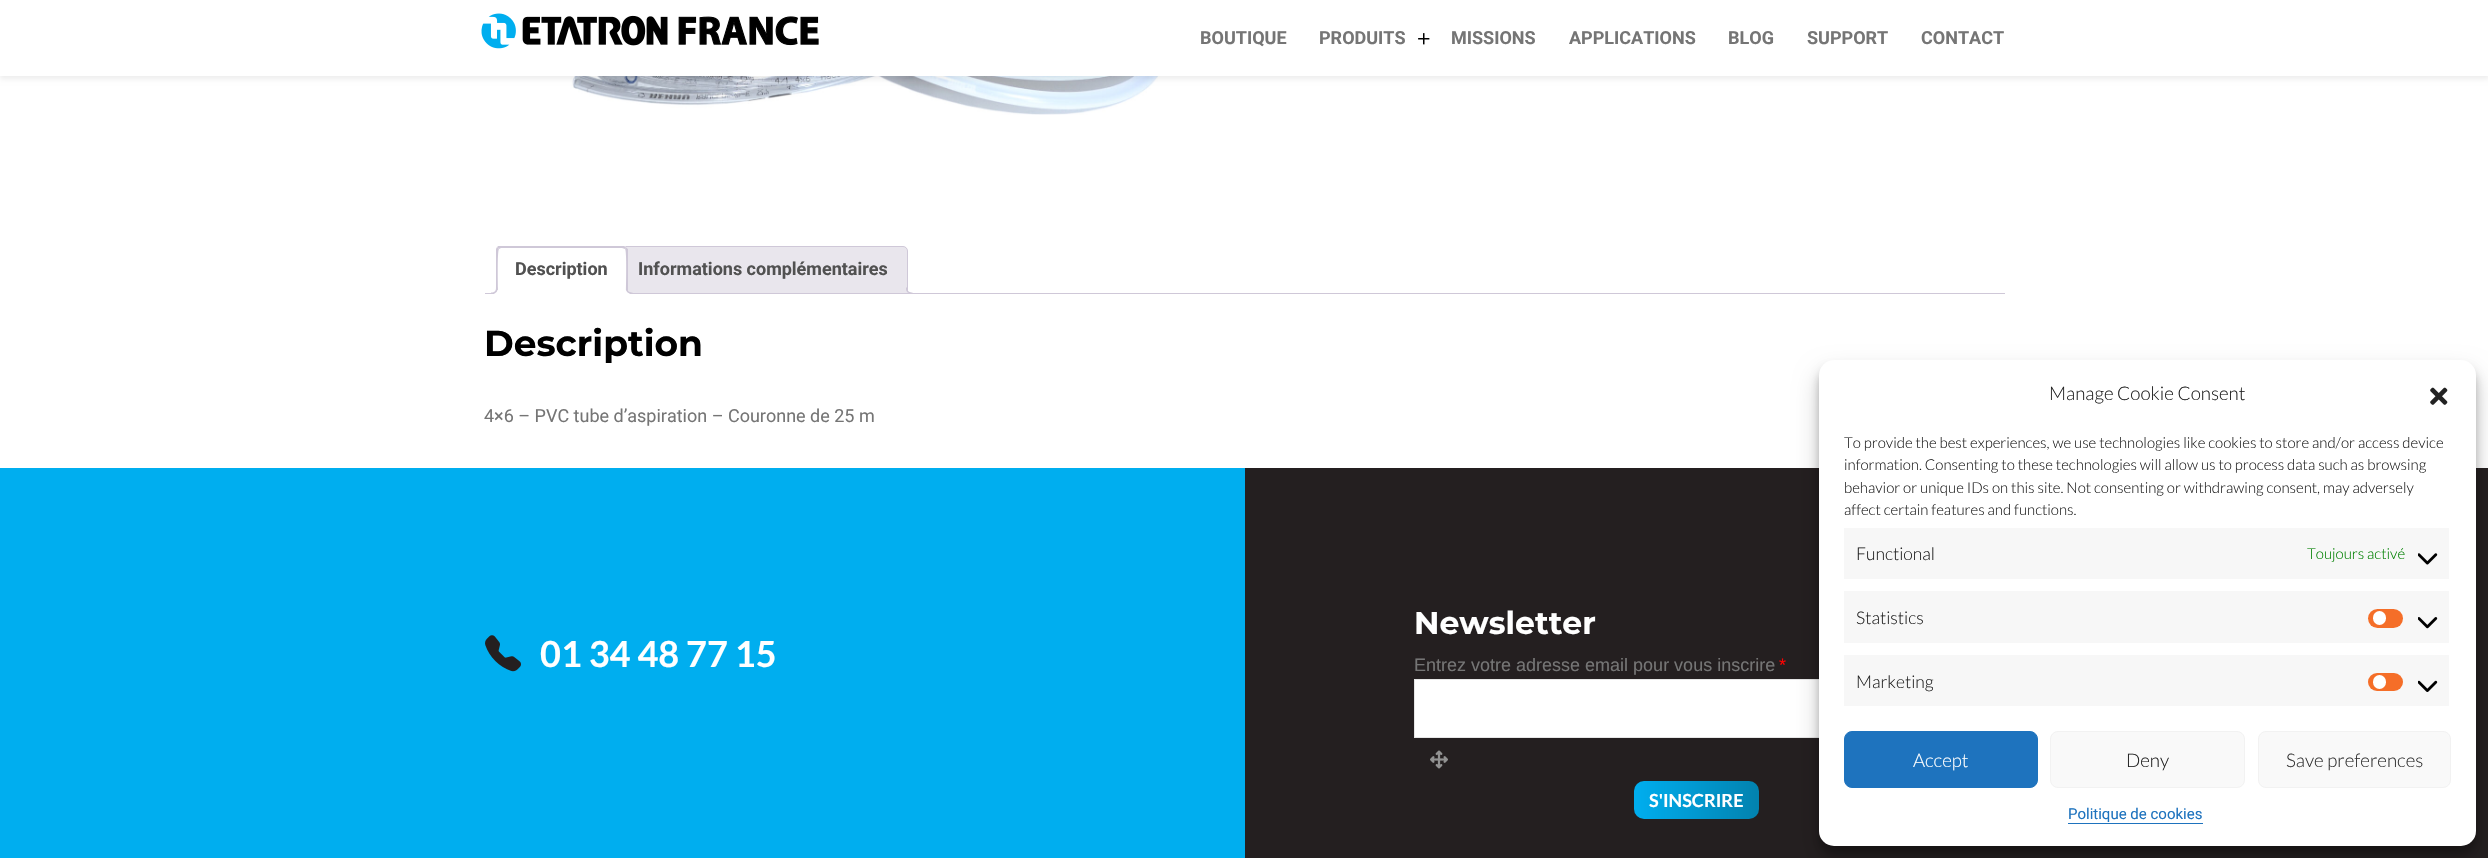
void draw(SkCanvas* canvas) {
    SkPaint paint;
    paint.setAntiAlias(true);
    auto face = [&](const char* family, int weight, float size, bool italic = false) {
        SkFontStyle style(weight, SkFontStyle::kNormal_Width,
            italic ? SkFontStyle::kItalic_Slant : SkFontStyle::kUpright_Slant);
        SkFont result(fontMgr->matchFamilyStyle(family, style), size);
        result.setSubpixel(true);
        return result;
    };
    auto write = [&](const char* s, float x, float y, const SkFont& font, SkColor color) {
        SkPaint ink(SkColor4f::FromColor(color));
        ink.setAntiAlias(true);
        canvas->drawString(s, x, y, font, ink);
    };
    auto block = [&](float x, float y, float w, float h, SkColor color) {
        SkPaint ink(SkColor4f::FromColor(color));
        ink.setAntiAlias(true);
        canvas->drawRect(SkRect::MakeXYWH(x, y, w, h), ink);
    };
    auto card = [&](float x, float y, float w, float h, float radius, SkColor color) {
        SkPaint ink(SkColor4f::FromColor(color));
        ink.setAntiAlias(true);
        canvas->drawRoundRect(SkRect::MakeXYWH(x, y, w, h), radius, radius, ink);
    };
    auto paste = [&](const char* path, float x, float y, float w, float h) {
        auto image = SkImages::DeferredFromEncodedData(SkData::MakeFromFileName(path));
        canvas->drawImageRect(image, SkRect::MakeXYWH(x, y, w, h), SkSamplingOptions());
    };
    canvas->clear(SK_ColorWHITE);
    paste("pic3.png", 565, 76, 624, 39);
    paint.setColor(SkColorSetARGB(18, 0, 0, 0));
    paint.setMaskFilter(SkMaskFilter::MakeBlur(kNormal_SkBlurStyle, 2.5f));
    canvas->drawRect(SkRect::MakeXYWH(0, -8, 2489, 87), paint);
    paint.setMaskFilter(nullptr);
    block(0, 0, 2488, 76, SK_ColorWHITE);
    paste("pic1.png", 481, 13, 338, 36);
    auto kFont1 = face("Roboto", 700, 18);
    write("BOUTIQUE", 1200, 44, kFont1, SkColorSetRGB(117, 117, 117));
    write("PRODUITS", 1319, 44, kFont1, SkColorSetRGB(117, 117, 117));
    paste("pic2.png", 1418, 33, 12, 12);
    write("MISSIONS", 1451, 44, kFont1, SkColorSetRGB(117, 117, 117));
    write("APPLICATIONS", 1569, 44, kFont1, SkColorSetRGB(117, 117, 117));
    write("BLOG", 1728, 44, kFont1, SkColorSetRGB(117, 117, 117));
    write("SUPPORT", 1807, 44, kFont1, SkColorSetRGB(117, 117, 117));
    write("CONTACT", 1921, 44, kFont1, SkColorSetRGB(117, 117, 117));
    paint.setColor(SkColorSetRGB(233, 230, 237));
    canvas->drawPath(SkPathBuilder().moveTo(624, 246.5f).lineTo(903, 246.5f).cubicTo(905.5f, 246.5f, 907.5f, 248.5f, 907.5f, 251).lineTo(907.5f, 293.5f).lineTo(619.5f, 293.5f).lineTo(619.5f, 251).cubicTo(619.5f, 248.5f, 621.5f, 246.5f, 624, 246.5f).close().detach(), paint);
    paint.setStyle(SkPaint::kStroke_Style);
    paint.setStrokeWidth(1);
    paint.setColor(SkColorSetRGB(207, 200, 216));
    canvas->drawPath(SkPathBuilder().moveTo(624, 246.5f).lineTo(903, 246.5f).cubicTo(905.5f, 246.5f, 907.5f, 248.5f, 907.5f, 251).lineTo(907.5f, 293.5f).lineTo(619.5f, 293.5f).lineTo(619.5f, 251).cubicTo(619.5f, 248.5f, 621.5f, 246.5f, 624, 246.5f).close().detach(), paint);
    canvas->save();
    canvas->clipRect(SkRect::MakeXYWH(485, 246, 1520, 48));
    paint.setStyle(SkPaint::kFill_Style);
    paint.setColor(SkColorSetRGB(233, 230, 237));
    canvas->drawPath(SkPathBuilder().moveTo(904, 290).cubicTo(904, 294, 906, 296, 910, 296).lineTo(910, 293.5f).cubicTo(908, 293, 907, 292, 906.5f, 290).close().detach(), paint);
    canvas->restore();
    paint.setColor(SkColorSetRGB(207, 200, 216));
    canvas->drawPath(SkPathBuilder(SkPathFillType::kEvenOdd).moveTo(906, 287.5f).lineTo(912.5f, 287.5f).lineTo(912.5f, 294).cubicTo(909.5f, 294, 906, 292.5f, 906, 289).close().moveTo(907.5f, 287.5f).lineTo(912.5f, 287.5f).lineTo(912.5f, 292.5f).cubicTo(910, 292.5f, 907.5f, 291.5f, 907.5f, 289).close().detach(), paint);
    block(485, 293, 1520, 1, SkColorSetRGB(207, 200, 216));
    paint.setColor(SK_ColorWHITE);
    canvas->drawPath(SkPathBuilder().moveTo(501, 246).lineTo(623, 246).cubicTo(626, 246, 628, 248, 628, 251).lineTo(628, 294).lineTo(496, 294).lineTo(496, 251).cubicTo(496, 248, 498, 246, 501, 246).close().detach(), paint);
    canvas->save();
    canvas->clipRect(SkRect::MakeXYWH(485, 246, 1520, 48));
    paint.setColor(SkColorSetRGB(207, 200, 216));
    canvas->drawPath(SkPathBuilder().moveTo(501, 248).lineTo(499, 249).lineTo(497, 247).cubicTo(503, 242, 512, 246, 520, 246).lineTo(624, 246).lineTo(626, 247).lineTo(625, 249).lineTo(622, 248).close().detach(), paint);
    canvas->restore();
    canvas->drawPath(SkPathBuilder().moveTo(626, 247).lineTo(628, 249).lineTo(628, 294).lineTo(626, 292).cubicTo(626, 287, 627, 250, 625, 249).close().detach(), paint);
    paint.setColor(SK_ColorWHITE);
    canvas->drawPath(SkPathBuilder().moveTo(628, 294).lineTo(626, 292).lineTo(498, 292).lineTo(496, 294).close().detach(), paint);
    paint.setColor(SkColorSetRGB(207, 200, 216));
    canvas->drawPath(SkPathBuilder().moveTo(496, 294).lineTo(496, 249).lineTo(497, 247).lineTo(499, 249).cubicTo(497, 251, 498, 287, 498, 292).close().detach(), paint);
    write("Description", 515, 275, kFont1, SkColorSetRGB(81, 81, 81));
    canvas->save();
    canvas->clipRect(SkRect::MakeXYWH(485, 246, 1520, 48));
    paint.setColor(SK_ColorWHITE);
    canvas->drawPath(SkPathBuilder().moveTo(494, 293.5f).lineTo(494, 296).cubicTo(498, 296, 500, 294, 500, 290).lineTo(497.5f, 290).cubicTo(497, 291.5f, 495.5f, 293, 494, 293.5f).close().detach(), paint);
    canvas->restore();
    paint.setColor(SkColorSetRGB(207, 200, 216));
    canvas->drawPath(SkPathBuilder(SkPathFillType::kEvenOdd).moveTo(491, 287.5f).lineTo(497.5f, 287.5f).cubicTo(497.5f, 292, 495.5f, 294, 491, 294).close().moveTo(491, 287.5f).lineTo(496, 287.5f).cubicTo(496, 291, 495, 292.5f, 491, 292.5f).close().detach(), paint);
    canvas->save();
    canvas->clipRect(SkRect::MakeXYWH(485, 246, 1520, 48));
    paint.setColor(SK_ColorWHITE);
    canvas->drawPath(SkPathBuilder().moveTo(624, 290).cubicTo(624, 294, 626, 296, 630, 296).lineTo(630, 293.5f).cubicTo(628, 293, 627, 292, 626.5f, 290).close().detach(), paint);
    canvas->restore();
    paint.setColor(SkColorSetRGB(207, 200, 216));
    canvas->drawPath(SkPathBuilder(SkPathFillType::kEvenOdd).moveTo(626, 287.5f).lineTo(632.5f, 287.5f).lineTo(632.5f, 294).cubicTo(629.5f, 294, 626, 292.5f, 626, 289).close().moveTo(627.5f, 287.5f).lineTo(632.5f, 287.5f).lineTo(632.5f, 292.5f).cubicTo(630, 292.5f, 627.5f, 291.5f, 627.5f, 289).close().detach(), paint);
    write("Informations complémentaires", 638, 275, kFont1, SkColorSetRGB(81, 81, 81));
    auto kFont2 = face("Montserrat", 700, 36);
    write("Description", 484, 356, kFont2, SK_ColorBLACK);
    auto kFont3 = face("Roboto", 400, 18);
    write("4×6 – PVC tube d’aspiration – Couronne de 25 m", 484, 422, kFont3, SkColorSetRGB(117, 117, 117));
    block(0, 468, 1245, 390, SkColorSetRGB(0, 174, 239));
    block(1245, 468, 1243, 390, SkColorSetRGB(36, 31, 32));
    paste("pic4.png", 485, 635, 36, 37);
    auto kFont4 = face("Lato", 700, 36);
    write("01 34 48 77 15", 540, 667, kFont4, SK_ColorWHITE);
    auto kFont5 = face("Montserrat", 700, 31.5f);
    write("Newsletter", 1414, 634, kFont5, SK_ColorWHITE);
    auto kFont6 = face("Liberation Sans", 400, 18);
    write("Entrez votre adresse email pour vous inscrire", 1414, 671, kFont6, SkColorSetRGB(117, 117, 117));
    write("*", 1779, 671, kFont6, SkColorSetRGB(255, 0, 0));
    block(1415, 680, 404, 57, SK_ColorWHITE);
    paint.setStyle(SkPaint::kStroke_Style);
    paint.setColor(SkColorSetRGB(230, 230, 230));
    canvas->drawRect(SkRect::MakeXYWH(1414.5f, 679.5f, 564, 58), paint);
    paste("pic5.png", 1430, 750, 18, 19);
    paint.setStyle(SkPaint::kFill_Style);
    {
        const SkColor colors[] = {SkColorSetRGB(0, 174, 239), SkColorSetRGB(2, 130, 175)};
        const float stops[] = {0, 1};
        const SkPoint ends[] = {{1634, 800}, {1759, 800}};
        paint.setShader(SkGradientShader::MakeLinear(ends, colors, stops, 2, SkTileMode::kClamp));
        paint.setAlpha(255);
    }
    canvas->drawRoundRect(SkRect::MakeXYWH(1634, 781, 125, 38), 10, 10, paint);
    auto kFont7 = face("Lato", 700, 18);
    write("S'INSCRIRE", 1649, 807, kFont7, SK_ColorWHITE);
    paint.setShader(nullptr);
    paint.setColor(SkColorSetARGB(59, 0, 0, 0));
    paint.setMaskFilter(SkMaskFilter::MakeBlur(kNormal_SkBlurStyle, 4));
    canvas->drawRoundRect(SkRect::MakeXYWH(1819, 368, 657, 486), 15, 15, paint);
    paint.setMaskFilter(nullptr);
    paint.setColor(SkColorSetARGB(48, 0, 0, 0));
    paint.setMaskFilter(SkMaskFilter::MakeBlur(kNormal_SkBlurStyle, 12.5f));
    canvas->drawRoundRect(SkRect::MakeXYWH(1819, 373, 657, 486), 15, 15, paint);
    paint.setMaskFilter(nullptr);
    card(1819, 360, 657, 486, 15, SK_ColorWHITE);
    auto kFont8 = face("Lato", 300, 18.75f);
    write("Manage Cookie Consent", 2049, 400, kFont8, SkColorSetRGB(34, 34, 34));
    paste("pic6.png", 2430, 387, 18, 18);
    auto kFont9 = face("Lato", 300, 15);
    write("To provide the best experiences, we use technologies like cookies to store and/or access device", 1844, 448, kFont9, SkColorSetRGB(34, 34, 34));
    write("information. Consenting to these technologies will allow us to process data such as browsing", 1844, 470, kFont9, SkColorSetRGB(34, 34, 34));
    write("behavior or unique IDs on this site. Not consenting or withdrawing consent, may adversely", 1844, 493, kFont9, SkColorSetRGB(34, 34, 34));
    write("affect certain features and functions.", 1844, 515, kFont9, SkColorSetRGB(34, 34, 34));
    block(1844, 528, 605, 51, SkColorSetRGB(247, 247, 247));
    auto kFont10 = face("Lato", 300, 17.5f);
    write("Functional", 1856, 560, kFont10, SkColorSetRGB(34, 34, 34));
    write("Toujours activé", 2307, 559, kFont9, SkColorSetRGB(0, 128, 0));
    paste("pic7.png", 2418, 553, 20, 12);
    block(1844, 591, 605, 52, SkColorSetRGB(247, 247, 247));
    write("Statistics", 1856, 624, kFont10, SkColorSetRGB(34, 34, 34));
    card(2368, 609, 35, 19, 9.5f, SkColorSetRGB(245, 110, 40));
    card(2373, 611, 13, 14, 6.5f, SK_ColorWHITE);
    paste("pic8.png", 2418, 617, 20, 12);
    block(1844, 655, 605, 51, SkColorSetRGB(247, 247, 247));
    write("Marketing", 1856, 688, kFont10, SkColorSetRGB(34, 34, 34));
    card(2368, 673, 35, 18, 9, SkColorSetRGB(245, 110, 40));
    card(2373, 675, 13, 14, 6.5f, SK_ColorWHITE);
    paste("pic9.png", 2418, 680, 20, 12);
    paint.setColor(SkColorSetRGB(30, 115, 190));
    canvas->drawRoundRect(SkRect::MakeXYWH(1844.5f, 731.5f, 193, 56), 7.5f, 7.5f, paint);
    paint.setStyle(SkPaint::kStroke_Style);
    canvas->drawRoundRect(SkRect::MakeXYWH(1844.5f, 731.5f, 193, 56), 7.5f, 7.5f, paint);
    write("Accept", 1913, 767, kFont8, SK_ColorWHITE);
    paint.setStyle(SkPaint::kFill_Style);
    paint.setColor(SkColorSetRGB(249, 249, 249));
    canvas->drawRoundRect(SkRect::MakeXYWH(2050.5f, 731.5f, 194, 56), 7.5f, 7.5f, paint);
    paint.setStyle(SkPaint::kStroke_Style);
    paint.setColor(SkColorSetRGB(242, 242, 242));
    canvas->drawRoundRect(SkRect::MakeXYWH(2050.5f, 731.5f, 194, 56), 7.5f, 7.5f, paint);
    write("Deny", 2126, 767, kFont8, SkColorSetRGB(34, 34, 34));
    paint.setStyle(SkPaint::kFill_Style);
    paint.setColor(SkColorSetRGB(249, 249, 249));
    canvas->drawRoundRect(SkRect::MakeXYWH(2258.5f, 731.5f, 192, 56), 7.5f, 7.5f, paint);
    paint.setStyle(SkPaint::kStroke_Style);
    paint.setColor(SkColorSetRGB(242, 242, 242));
    canvas->drawRoundRect(SkRect::MakeXYWH(2258.5f, 731.5f, 192, 56), 7.5f, 7.5f, paint);
    write("Save preferences", 2286, 767, kFont8, SkColorSetRGB(51, 51, 51));
    auto kFont11 = face("Roboto", 400, 15);
    write("Politique de cookies", 2068, 819, kFont11, SkColorSetRGB(30, 115, 190));
    block(2068, 823, 135, 1, SkColorSetRGB(30, 115, 190));
}
